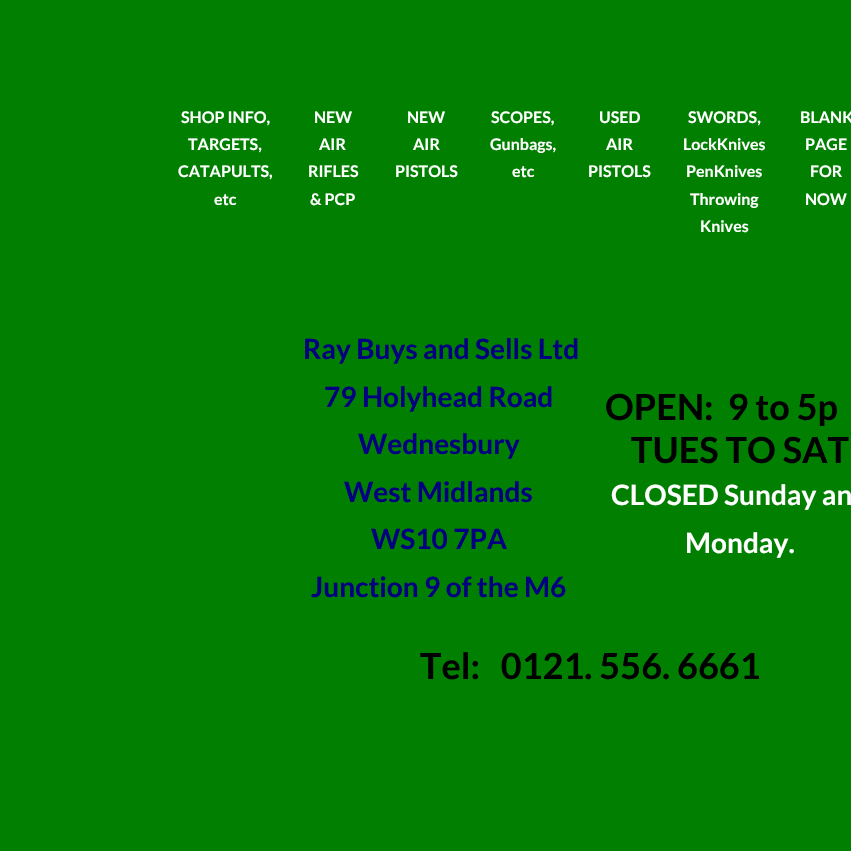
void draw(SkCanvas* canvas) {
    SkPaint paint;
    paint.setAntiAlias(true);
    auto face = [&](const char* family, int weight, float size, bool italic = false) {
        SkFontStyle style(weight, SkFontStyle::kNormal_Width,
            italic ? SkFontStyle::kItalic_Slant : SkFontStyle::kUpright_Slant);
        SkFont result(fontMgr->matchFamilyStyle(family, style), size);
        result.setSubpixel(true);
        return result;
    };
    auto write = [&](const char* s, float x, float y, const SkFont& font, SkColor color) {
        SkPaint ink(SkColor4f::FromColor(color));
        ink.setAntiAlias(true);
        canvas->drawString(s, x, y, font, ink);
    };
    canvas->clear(SkColorSetRGB(0, 127, 0));
    auto kFont1 = face("Lato", 700, 16);
    write("SHOP INFO,", 181, 123, kFont1, SK_ColorWHITE);
    write("TARGETS,", 188, 150, kFont1, SK_ColorWHITE);
    write("CATAPULTS,", 178, 177, kFont1, SK_ColorWHITE);
    write("etc", 214, 205, kFont1, SK_ColorWHITE);
    write("NEW", 314, 123, kFont1, SK_ColorWHITE);
    write("AIR", 319, 150, kFont1, SK_ColorWHITE);
    write("RIFLES", 308, 177, kFont1, SK_ColorWHITE);
    write("& PCP", 310, 205, kFont1, SK_ColorWHITE);
    write("NEW", 407, 123, kFont1, SK_ColorWHITE);
    write("AIR", 413, 150, kFont1, SK_ColorWHITE);
    write("PISTOLS", 395, 177, kFont1, SK_ColorWHITE);
    write("SCOPES,", 491, 123, kFont1, SK_ColorWHITE);
    write("Gunbags,", 490, 150, kFont1, SK_ColorWHITE);
    write("etc", 512, 177, kFont1, SK_ColorWHITE);
    write("USED", 599, 123, kFont1, SK_ColorWHITE);
    write("AIR", 606, 150, kFont1, SK_ColorWHITE);
    write("PISTOLS", 588, 177, kFont1, SK_ColorWHITE);
    write("SWORDS,", 688, 123, kFont1, SK_ColorWHITE);
    write("LockKnives", 683, 150, kFont1, SK_ColorWHITE);
    write("PenKnives", 686, 177, kFont1, SK_ColorWHITE);
    write("Throwing", 690, 205, kFont1, SK_ColorWHITE);
    write("Knives", 700, 232, kFont1, SK_ColorWHITE);
    write("BLANK", 800, 123, kFont1, SK_ColorWHITE);
    write("PAGE", 805, 150, kFont1, SK_ColorWHITE);
    write("FOR", 810, 177, kFont1, SK_ColorWHITE);
    write("NOW", 805, 205, kFont1, SK_ColorWHITE);
    auto kFont2 = face("Lato", 700, 28);
    write("Ray Buys and Sells Ltd", 303, 359, kFont2, SkColorSetRGB(0, 0, 128));
    write("79 Holyhead Road", 324, 407, kFont2, SkColorSetRGB(0, 0, 128));
    write("Wednesbury", 358, 454, kFont2, SkColorSetRGB(0, 0, 128));
    write("West Midlands", 344, 502, kFont2, SkColorSetRGB(0, 0, 128));
    write("WS10 7PA", 371, 549, kFont2, SkColorSetRGB(0, 0, 128));
    write("Junction 9 of the M6", 311, 597, kFont2, SkColorSetRGB(0, 0, 128));
    auto kFont3 = face("Lato", 700, 36);
    write("OPEN:  9 to 5p", 605, 420, kFont3, SK_ColorBLACK);
    write("TUES TO SAT", 631, 463, kFont3, SK_ColorBLACK);
    write("CLOSED Sunday an", 611, 505, kFont2, SK_ColorWHITE);
    write("Monday.", 685, 553, kFont2, SK_ColorWHITE);
    write("Tel:   0121. 556. 6661", 420, 679, kFont3, SK_ColorBLACK);
}
